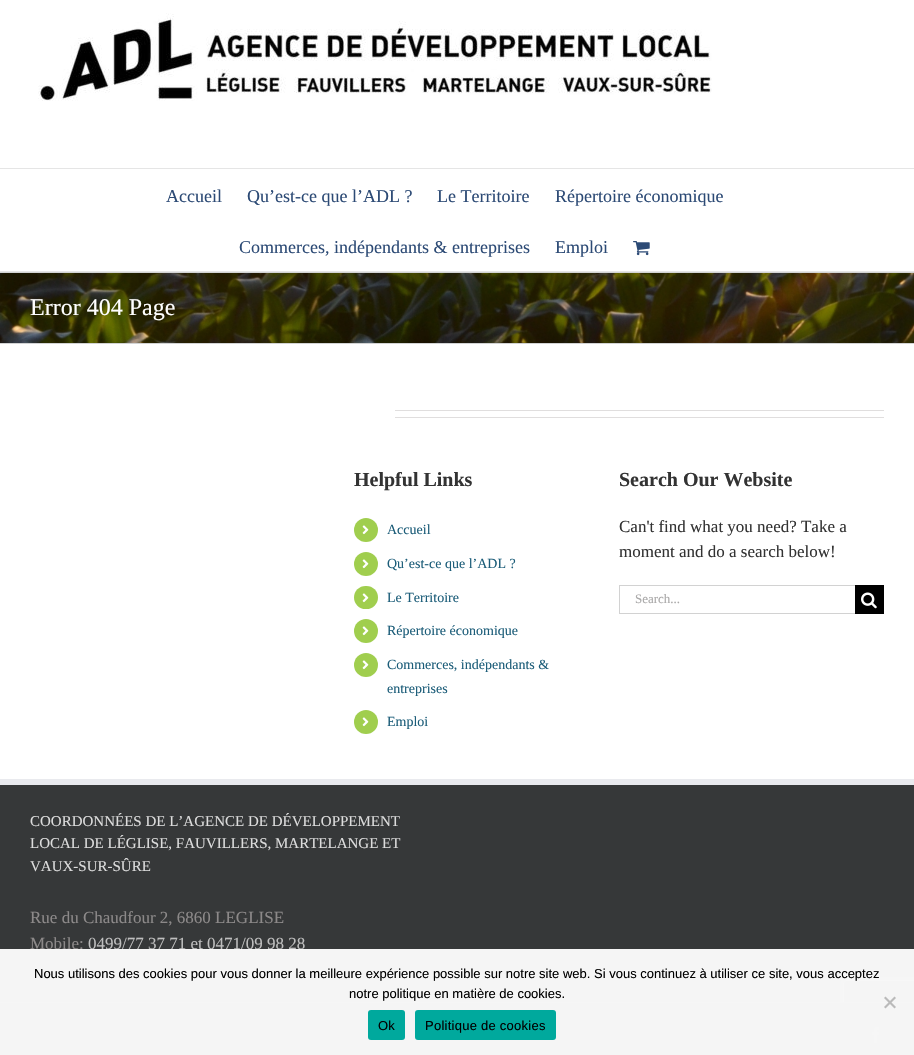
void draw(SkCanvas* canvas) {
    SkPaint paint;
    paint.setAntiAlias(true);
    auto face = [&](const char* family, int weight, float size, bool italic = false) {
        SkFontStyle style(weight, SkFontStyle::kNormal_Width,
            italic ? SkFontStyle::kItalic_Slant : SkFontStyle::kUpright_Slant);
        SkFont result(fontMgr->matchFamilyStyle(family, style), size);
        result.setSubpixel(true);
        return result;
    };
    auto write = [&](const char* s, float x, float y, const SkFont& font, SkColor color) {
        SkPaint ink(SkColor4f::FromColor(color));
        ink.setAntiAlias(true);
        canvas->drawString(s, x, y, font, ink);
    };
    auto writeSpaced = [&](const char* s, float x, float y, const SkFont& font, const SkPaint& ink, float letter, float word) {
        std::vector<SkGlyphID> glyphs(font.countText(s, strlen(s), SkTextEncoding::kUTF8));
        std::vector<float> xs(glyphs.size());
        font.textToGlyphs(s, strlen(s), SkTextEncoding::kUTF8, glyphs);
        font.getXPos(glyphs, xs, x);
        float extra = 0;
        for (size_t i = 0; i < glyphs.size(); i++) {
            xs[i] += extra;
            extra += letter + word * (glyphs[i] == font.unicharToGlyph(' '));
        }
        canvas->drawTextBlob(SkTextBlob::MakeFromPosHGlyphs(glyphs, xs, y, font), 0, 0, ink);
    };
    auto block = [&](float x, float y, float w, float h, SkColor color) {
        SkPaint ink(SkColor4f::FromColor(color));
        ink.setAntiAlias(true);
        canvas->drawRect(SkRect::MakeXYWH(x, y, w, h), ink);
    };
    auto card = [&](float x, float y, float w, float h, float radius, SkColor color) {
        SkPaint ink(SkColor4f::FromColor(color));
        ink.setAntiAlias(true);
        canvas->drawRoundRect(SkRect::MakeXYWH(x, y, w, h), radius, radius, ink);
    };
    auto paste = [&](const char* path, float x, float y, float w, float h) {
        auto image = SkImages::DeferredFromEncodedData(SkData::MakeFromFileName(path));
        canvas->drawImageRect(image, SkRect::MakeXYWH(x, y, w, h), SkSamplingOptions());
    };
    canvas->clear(SK_ColorWHITE);
    block(0, 168, 914, 1, SkColorSetRGB(229, 229, 229));
    paste("pic1.png", 38, 13, 674, 88);
    block(0, 271, 914, 1, SkColorSetRGB(229, 229, 229));
    auto kFont1 = face("Liberation Serif", 400, 18);
    write("Accueil", 166, 202, kFont1, SkColorSetRGB(44, 74, 117));
    write("Qu’est-ce que l’ADL ?", 247, 202, kFont1, SkColorSetRGB(44, 74, 117));
    write("Le Territoire", 437, 202, kFont1, SkColorSetRGB(44, 74, 117));
    write("Répertoire économique", 555, 202, kFont1, SkColorSetRGB(44, 74, 117));
    write("Commerces, indépendants & entreprises", 239, 253, kFont1, SkColorSetRGB(44, 74, 117));
    write("Emploi", 555, 253, kFont1, SkColorSetRGB(44, 74, 117));
    paste("pic2.png", 633, 241, 17, 15);
    paste("pic3.png", 0, 273, 914, 70);
    block(0, 272, 914, 1, SkColorSetRGB(210, 211, 212));
    block(0, 343, 914, 1, SkColorSetRGB(210, 211, 212));
    auto kFont2 = face("Liberation Serif", 400, 24);
    write("Error 404 Page", 30, 315, kFont2, SK_ColorWHITE);
    block(395, 410, 489, 1, SkColorSetRGB(224, 222, 222));
    block(395, 417, 489, 1, SkColorSetRGB(224, 222, 222));
    auto kFont3 = face("Liberation Serif", 700, 20);
    write("Helpful Links", 354, 486, kFont3, SkColorSetRGB(51, 51, 51));
    paint.setColor(SkColorSetRGB(160, 206, 78));
    canvas->drawCircle(366, 530, 12, paint);
    paste("pic4.png", 362, 525, 7, 10);
    auto kFont4 = face("Liberation Serif", 400, 14);
    write("Accueil", 387, 534, kFont4, SkColorSetRGB(28, 93, 121));
    canvas->drawCircle(366, 564, 12, paint);
    paste("pic4.png", 362, 559, 7, 10);
    write("Qu’est-ce que l’ADL ?", 387, 568, kFont4, SkColorSetRGB(28, 93, 121));
    card(354, 586, 24, 23, 11.5f, SkColorSetRGB(160, 206, 78));
    paste("pic4.png", 362, 593, 7, 10);
    write("Le Territoire", 387, 602, kFont4, SkColorSetRGB(28, 93, 121));
    canvas->drawCircle(366, 631, 12, paint);
    paste("pic4.png", 362, 626, 7, 10);
    write("Répertoire économique", 387, 635, kFont4, SkColorSetRGB(28, 93, 121));
    canvas->drawCircle(366, 665, 12, paint);
    paste("pic4.png", 362, 660, 7, 10);
    write("Commerces, indépendants &", 387, 669, kFont4, SkColorSetRGB(28, 93, 121));
    write("entreprises", 387, 693, kFont4, SkColorSetRGB(28, 93, 121));
    canvas->drawCircle(366, 722, 12, paint);
    paste("pic4.png", 362, 717, 7, 10);
    write("Emploi", 387, 726, kFont4, SkColorSetRGB(28, 93, 121));
    write("Search Our Website", 619, 486, kFont3, SkColorSetRGB(51, 51, 51));
    auto kFont5 = face("Liberation Serif", 400, 17);
    write("Can't find what you need? Take a", 619, 532, kFont5, SkColorSetRGB(51, 51, 51));
    write("moment and do a search below!", 619, 557, kFont5, SkColorSetRGB(51, 51, 51));
    block(619, 585, 236, 1, SkColorSetRGB(210, 210, 210));
    block(619, 613, 236, 1, SkColorSetRGB(210, 210, 210));
    block(619, 585, 1, 29, SkColorSetRGB(210, 210, 210));
    auto kFont6 = face("Liberation Serif", 400, 13);
    write("Search...", 635, 603, kFont6, SkColorSetRGB(170, 169, 169));
    block(855, 585, 29, 29, SK_ColorBLACK);
    paste("pic5.png", 861, 592, 16, 17);
    block(0, 785, 914, 217, SkColorSetRGB(54, 56, 57));
    block(0, 779, 914, 6, SkColorSetRGB(233, 234, 238));
    auto kFont7 = face("Liberation Serif", 400, 15);
    write("COORDONNÉES DE L’AGENCE DE DÉVELOPPEMENT", 30, 826, kFont7, SkColorSetRGB(221, 221, 221));
    write("LOCAL DE LÉGLISE, FAUVILLERS, MARTELANGE ET", 30, 848, kFont7, SkColorSetRGB(221, 221, 221));
    write("VAUX-SUR-SÛRE", 30, 871, kFont7, SkColorSetRGB(221, 221, 221));
    write("Rue du Chaudfour 2, 6860 LEGLISE", 30, 923, kFont5, SkColorSetRGB(140, 137, 137));
    write("Mobile:", 30, 949, kFont5, SkColorSetRGB(140, 137, 137));
    write("0499/77 37 71 et 0471/09 98 28", 88, 949, kFont5, SkColorSetRGB(191, 191, 191));
    canvas->save();
    canvas->clipPath(SkPathBuilder(SkPathFillType::kEvenOdd).moveTo(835, 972).lineTo(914, 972).lineTo(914, 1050).lineTo(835, 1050).close().moveTo(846, 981).lineTo(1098, 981).cubicTo(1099, 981, 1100, 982, 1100, 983).lineTo(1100, 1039).cubicTo(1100, 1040, 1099, 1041, 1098, 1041).lineTo(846, 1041).cubicTo(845, 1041, 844, 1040, 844, 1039).lineTo(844, 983).cubicTo(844, 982, 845, 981, 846, 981).close().detach(), true);
    paint.setColor(SkColorSetRGB(128, 128, 128));
    paint.setMaskFilter(SkMaskFilter::MakeBlur(kNormal_SkBlurStyle, 2.5f));
    canvas->drawRoundRect(SkRect::MakeXYWH(844, 981, 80, 60), 2, 2, paint);
    paint.setMaskFilter(nullptr);
    canvas->restore();
    block(0, 1003, 914, 52, SkColorSetRGB(40, 42, 43));
    block(0, 1002, 914, 1, SkColorSetRGB(75, 76, 77));
    paste("pic6.png", 872, 1027, 8, 16);
    block(0, 949, 914, 106, SkColorSetARGB(242, 255, 255, 255));
    auto kFont8 = face("Liberation Sans", 400, 13);
    write("Nous utilisons des cookies pour vous donner la meilleure expérience possible sur notre site web. Si vous continuez à utiliser ce site, vous acceptez", 34, 978, kFont8, SK_ColorBLACK);
    write("notre politique en matière de cookies.", 349, 998, kFont8, SK_ColorBLACK);
    paint.setColor(SkColorSetRGB(186, 186, 186));
    canvas->drawPath(SkPathBuilder().moveTo(894.5f, 996.5f).lineTo(896, 998).lineTo(885.5f, 1008.5f).lineTo(884, 1007).close().detach(), paint);
    canvas->drawPath(SkPathBuilder().moveTo(884, 998).lineTo(885.5f, 996.5f).lineTo(896, 1007).lineTo(894.5f, 1008.5f).close().detach(), paint);
    card(368, 1010, 37, 30, 3, SkColorSetRGB(0, 169, 157));
    paint.setColor(SK_ColorBLACK);
    writeSpaced("Ok", 378, 1030, kFont8, paint, 0.25f, 0);
    card(415, 1010, 141, 30, 3, SkColorSetRGB(0, 169, 157));
    writeSpaced("Politique de cookies", 425, 1030, kFont8, paint, 0.25f, 0);
}
